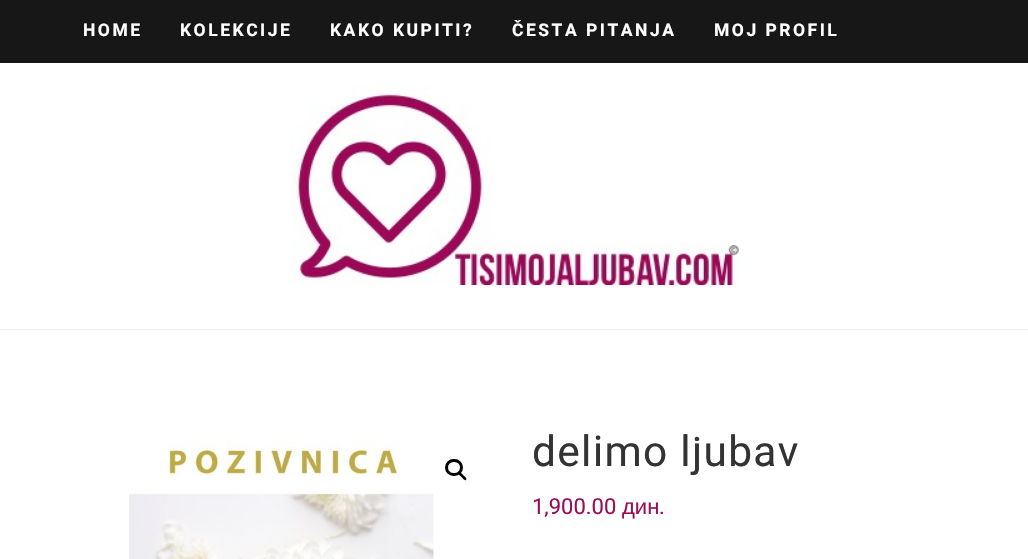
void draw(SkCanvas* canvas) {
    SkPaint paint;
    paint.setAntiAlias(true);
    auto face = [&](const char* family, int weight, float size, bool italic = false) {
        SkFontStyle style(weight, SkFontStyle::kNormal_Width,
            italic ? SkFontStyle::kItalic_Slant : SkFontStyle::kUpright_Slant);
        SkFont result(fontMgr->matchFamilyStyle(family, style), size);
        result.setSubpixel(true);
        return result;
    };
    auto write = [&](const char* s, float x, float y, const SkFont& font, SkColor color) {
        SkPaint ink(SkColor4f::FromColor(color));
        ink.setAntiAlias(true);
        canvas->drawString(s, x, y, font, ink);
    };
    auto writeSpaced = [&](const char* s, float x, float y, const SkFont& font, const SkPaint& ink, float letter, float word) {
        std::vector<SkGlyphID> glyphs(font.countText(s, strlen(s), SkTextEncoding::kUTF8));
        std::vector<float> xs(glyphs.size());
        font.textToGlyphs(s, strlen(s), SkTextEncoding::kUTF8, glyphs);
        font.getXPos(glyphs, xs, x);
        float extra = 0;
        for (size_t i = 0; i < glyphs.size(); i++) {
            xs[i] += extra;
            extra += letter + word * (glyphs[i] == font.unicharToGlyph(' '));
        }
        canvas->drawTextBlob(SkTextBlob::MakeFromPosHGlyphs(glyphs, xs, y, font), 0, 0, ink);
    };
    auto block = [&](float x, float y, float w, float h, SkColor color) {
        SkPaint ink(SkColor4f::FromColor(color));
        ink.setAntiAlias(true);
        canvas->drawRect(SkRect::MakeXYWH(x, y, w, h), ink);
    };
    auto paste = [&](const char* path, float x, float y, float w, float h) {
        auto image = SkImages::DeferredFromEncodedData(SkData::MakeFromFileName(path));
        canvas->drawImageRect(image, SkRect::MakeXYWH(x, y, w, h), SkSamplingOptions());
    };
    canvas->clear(SK_ColorWHITE);
    block(0, 0, 1028, 63, SkColorSetRGB(23, 23, 23));
    auto kFont1 = face("Heebo", 700, 17.5f);
    paint.setColor(SK_ColorWHITE);
    writeSpaced("HOME", 83, 36, kFont1, paint, 2.5f, 0);
    writeSpaced("KOLEKCIJE", 180, 36, kFont1, paint, 2.5f, 0);
    writeSpaced("KAKO KUPITI?", 330, 36, kFont1, paint, 2.5f, 0);
    writeSpaced("ČESTA PITANJA", 512, 36, kFont1, paint, 2.5f, 0);
    writeSpaced("MOJ PROFIL", 714, 36, kFont1, paint, 2.5f, 0);
    block(0, 329, 1028, 1, SkColorSetRGB(238, 238, 238));
    paste("pic1.png", 290, 85, 450, 200);
    paste("pic2.png", 129, 441, 305, 118);
    paint.setStyle(SkPaint::kStroke_Style);
    paint.setStrokeWidth(3);
    paint.setColor(SK_ColorBLACK);
    canvas->drawRoundRect(SkRect::MakeXYWH(446.5f, 460.5f, 15, 14), 7, 7, paint);
    paint.setStyle(SkPaint::kFill_Style);
    canvas->drawPath(SkPathBuilder().moveTo(459, 472.5f).cubicTo(460.5f, 471.5f, 462.5f, 474.5f, 463.5f, 475.5f).cubicTo(464.5f, 476, 467.5f, 478.5f, 466, 480).cubicTo(464.5f, 481, 462.5f, 478, 461.5f, 477).cubicTo(461, 476.5f, 457.5f, 474, 459, 472.5f).close().detach(), paint);
    auto kFont2 = face("Heebo", 400, 42.5f);
    paint.setColor(SkColorSetRGB(51, 51, 51));
    writeSpaced("delimo ljubav", 532, 466, kFont2, paint, 1.25f, 0);
    auto kFont3 = face("Heebo", 400, 22);
    write("1,900.00", 532, 514, kFont3, SkColorSetRGB(153, 14, 87));
    auto kFont4 = face("Liberation Sans", 400, 22);
    write("дин", 622, 514, kFont4, SkColorSetRGB(153, 14, 87));
    write(".", 659, 514, kFont3, SkColorSetRGB(153, 14, 87));
}
